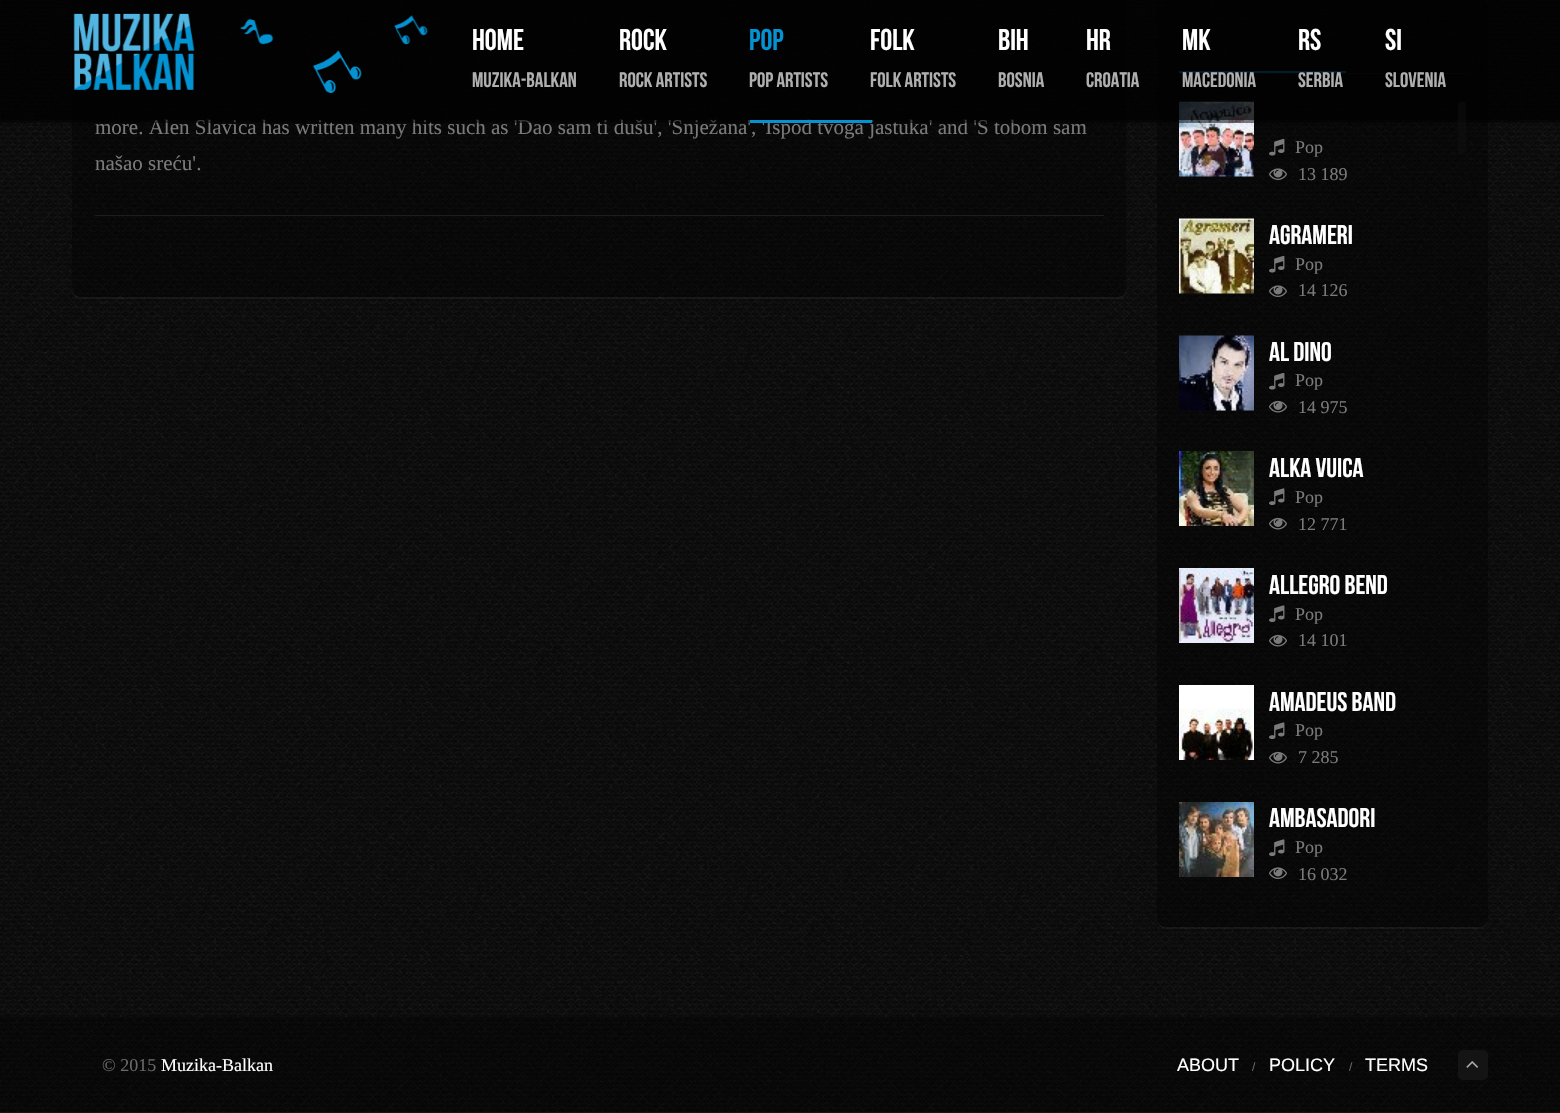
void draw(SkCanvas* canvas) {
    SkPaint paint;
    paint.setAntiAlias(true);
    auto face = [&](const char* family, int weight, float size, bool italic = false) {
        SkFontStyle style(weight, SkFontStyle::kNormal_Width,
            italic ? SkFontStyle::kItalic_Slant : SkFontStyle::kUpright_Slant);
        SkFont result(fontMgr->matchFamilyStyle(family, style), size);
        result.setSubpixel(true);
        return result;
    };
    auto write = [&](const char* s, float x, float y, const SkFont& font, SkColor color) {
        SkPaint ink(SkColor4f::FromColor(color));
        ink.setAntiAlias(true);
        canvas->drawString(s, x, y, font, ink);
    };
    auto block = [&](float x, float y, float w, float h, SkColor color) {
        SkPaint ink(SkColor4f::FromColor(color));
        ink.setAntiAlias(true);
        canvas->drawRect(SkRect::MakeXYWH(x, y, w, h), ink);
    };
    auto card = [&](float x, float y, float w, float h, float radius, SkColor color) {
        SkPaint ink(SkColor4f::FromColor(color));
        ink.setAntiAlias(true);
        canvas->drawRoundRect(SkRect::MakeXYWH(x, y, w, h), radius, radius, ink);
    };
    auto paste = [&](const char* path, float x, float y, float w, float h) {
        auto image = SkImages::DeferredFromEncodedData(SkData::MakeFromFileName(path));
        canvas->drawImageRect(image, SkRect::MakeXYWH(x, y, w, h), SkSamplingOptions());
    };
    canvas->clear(SkColorSetRGB(51, 51, 51));
    paste("pic1.png", 0, 0, 1560, 1113);
    paint.setColor(SkColorSetARGB(10, 255, 255, 255));
    canvas->drawPath(SkPathBuilder().moveTo(72, 288).lineTo(72, 290).cubicTo(72, 295, 76, 299, 81, 299).lineTo(1118, 299).cubicTo(1123, 299, 1127, 295, 1127, 290).lineTo(1127, -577).lineTo(1126, -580).lineTo(1126, 288).cubicTo(1126, 293, 1122, 297, 1118, 297).lineTo(81, 297).cubicTo(76, 297, 72, 293, 72, 288).close().detach(), paint);
    card(72, -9, 1055, 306, 9, SkColorSetARGB(102, 0, 0, 0));
    paint.setColor(SkColorSetARGB(38, 0, 0, 0));
    canvas->drawPath(SkPathBuilder().moveTo(81, -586).lineTo(1118, -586).cubicTo(1122, -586, 1126, -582, 1126, -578).lineTo(1126, 290).cubicTo(1126, 291, 1126, 293, 1125, 294).cubicTo(1126, 292, 1127, 290, 1127, 288).lineTo(1127, -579).cubicTo(1127, -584, 1123, -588, 1118, -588).lineTo(81, -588).cubicTo(76, -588, 72, -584, 72, -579).lineTo(72, -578).cubicTo(72, -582, 76, -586, 81, -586).close().detach(), paint);
    auto kFont1 = face("Liberation Serif", 400, 21);
    write("more. Alen Slavica has written many hits such as 'Dao sam ti dušu', 'Snježana', 'Ispod tvoga jastuka' and 'S tobom sam", 95, 134, kFont1, SkColorSetRGB(122, 122, 122));
    paint.setColor(SkColorSetARGB(10, 255, 255, 255));
    canvas->drawPath(SkPathBuilder().moveTo(1157, 921).cubicTo(1158, 926, 1162, 929, 1166, 929).lineTo(1479, 929).cubicTo(1485, 929, 1488, 924, 1488, 918).cubicTo(1488, 923, 1484, 927, 1479, 927).lineTo(1166, 927).cubicTo(1162, 927, 1158, 925, 1157, 921).close().detach(), paint);
    card(1157, 0, 331, 927, 9, SkColorSetARGB(102, 0, 0, 0));
    paste("pic3.png", 1179, 101, 75, 76);
    block(0, 120, 1560, 3, SkColorSetARGB(128, 0, 0, 0));
    block(1179, 73, 287, 1, SkColorSetARGB(204, 34, 34, 34));
    block(1346, 71, 120, 2, SkColorSetRGB(8, 8, 8));
    block(1179, 71, 167, 2, SkColorSetRGB(4, 147, 210));
    block(0, 0, 1560, 120, SkColorSetARGB(204, 0, 0, 0));
    paste("pic2.png", 73, 13, 355, 80);
    auto kFont2 = face("Bebas Neue", 700, 30);
    write("HOME", 472, 50, kFont2, SK_ColorWHITE);
    auto kFont3 = face("Bebas Neue", 700, 21);
    write("muzika-balkan", 472, 87, kFont3, SkColorSetRGB(175, 175, 175));
    write("ROCK", 619, 50, kFont2, SK_ColorWHITE);
    write("rock artists", 619, 87, kFont3, SkColorSetRGB(175, 175, 175));
    write("POP", 749, 50, kFont2, SkColorSetRGB(4, 147, 210));
    write("pop artists", 749, 87, kFont3, SkColorSetRGB(175, 175, 175));
    write("FOLK", 870, 50, kFont2, SK_ColorWHITE);
    write("folk artists", 870, 87, kFont3, SkColorSetRGB(175, 175, 175));
    write("BIH", 998, 50, kFont2, SK_ColorWHITE);
    write("bosnia", 998, 87, kFont3, SkColorSetRGB(175, 175, 175));
    write("HR", 1086, 50, kFont2, SK_ColorWHITE);
    write("croatia", 1086, 87, kFont3, SkColorSetRGB(175, 175, 175));
    write("MK", 1182, 50, kFont2, SK_ColorWHITE);
    write("macedonia", 1182, 87, kFont3, SkColorSetRGB(175, 175, 175));
    write("RS", 1298, 50, kFont2, SK_ColorWHITE);
    write("serbia", 1298, 87, kFont3, SkColorSetRGB(175, 175, 175));
    write("SI", 1385, 50, kFont2, SK_ColorWHITE);
    write("slovenia", 1385, 87, kFont3, SkColorSetRGB(175, 175, 175));
    block(750, 120, 122, 3, SkColorSetRGB(4, 147, 210));
    block(95, 215, 1009, 1, SkColorSetARGB(204, 34, 34, 34));
    block(95, 213, 1009, 2, SkColorSetRGB(8, 8, 8));
    write("našao sreću'.", 95, 170, kFont1, SkColorSetRGB(122, 122, 122));
    paste("pic4.png", 1269, 138, 16, 18);
    auto kFont4 = face("Liberation Serif", 400, 18);
    write("Pop", 1295, 153, kFont4, SkColorSetRGB(122, 122, 122));
    paste("pic5.png", 1269, 168, 18, 12);
    write("13 189", 1298, 180, kFont4, SkColorSetRGB(122, 122, 122));
    paste("pic6.png", 1179, 218, 75, 76);
    auto kFont5 = face("Bebas Neue", 700, 27);
    write("AGRAMERI", 1269, 244, kFont5, SK_ColorWHITE);
    paste("pic7.png", 1269, 255, 16, 18);
    write("Pop", 1295, 270, kFont4, SkColorSetRGB(122, 122, 122));
    paste("pic8.png", 1269, 285, 18, 12);
    write("14 126", 1298, 296, kFont4, SkColorSetRGB(122, 122, 122));
    paste("pic9.png", 1179, 335, 75, 76);
    write("AL DINO", 1269, 361, kFont5, SK_ColorWHITE);
    paste("pic10.png", 1269, 372, 16, 18);
    write("Pop", 1295, 386, kFont4, SkColorSetRGB(122, 122, 122));
    paste("pic11.png", 1269, 400, 18, 13);
    write("14 975", 1298, 413, kFont4, SkColorSetRGB(122, 122, 122));
    paste("pic12.png", 1179, 451, 75, 75);
    write("ALKA VUICA", 1269, 477, kFont5, SK_ColorWHITE);
    paste("pic13.png", 1269, 488, 16, 18);
    write("Pop", 1295, 503, kFont4, SkColorSetRGB(122, 122, 122));
    paste("pic14.png", 1269, 517, 18, 13);
    write("12 771", 1298, 530, kFont4, SkColorSetRGB(122, 122, 122));
    paste("pic15.png", 1179, 568, 75, 75);
    write("ALLEGRO BEND", 1269, 594, kFont5, SK_ColorWHITE);
    paste("pic16.png", 1269, 605, 16, 18);
    write("Pop", 1295, 620, kFont4, SkColorSetRGB(122, 122, 122));
    paste("pic17.png", 1269, 634, 18, 13);
    write("14 101", 1298, 646, kFont4, SkColorSetRGB(122, 122, 122));
    paste("pic18.png", 1179, 685, 75, 75);
    write("AMADEUS BAND", 1269, 711, kFont5, SK_ColorWHITE);
    paste("pic19.png", 1269, 722, 16, 18);
    write("Pop", 1295, 736, kFont4, SkColorSetRGB(122, 122, 122));
    paste("pic20.png", 1269, 751, 18, 13);
    write("7 285", 1298, 763, kFont4, SkColorSetRGB(122, 122, 122));
    paste("pic21.png", 1179, 802, 75, 75);
    write("AMBASADORI", 1269, 827, kFont5, SK_ColorWHITE);
    paste("pic22.png", 1269, 839, 16, 18);
    write("Pop", 1295, 853, kFont4, SkColorSetRGB(122, 122, 122));
    paste("pic23.png", 1269, 867, 18, 12);
    write("16 032", 1298, 880, kFont4, SkColorSetRGB(122, 122, 122));
    block(0, 1017, 1560, 96, SkColorSetARGB(102, 0, 0, 0));
    write("© 2015", 102, 1071, kFont4, SkColorSetRGB(105, 105, 105));
    write("Muzika-Balkan", 161, 1071, kFont4, SK_ColorWHITE);
    auto kFont6 = face("Liberation Sans", 400, 18);
    write("ABOUT", 1177, 1071, kFont6, SK_ColorWHITE);
    auto kFont7 = face("Liberation Sans", 400, 12);
    write("/", 1252, 1071, kFont7, SkColorSetRGB(105, 105, 105));
    write("POLICY", 1269, 1071, kFont6, SK_ColorWHITE);
    write("/", 1349, 1071, kFont7, SkColorSetRGB(105, 105, 105));
    write("TERMS", 1365, 1071, kFont6, SK_ColorWHITE);
    card(1458, 1050, 30, 30, 5, SkColorSetRGB(20, 20, 20));
    paste("pic24.png", 1466, 1061, 12, 7);
    card(1458, 102, 8, 51, 3, SkColorSetARGB(102, 18, 18, 18));
}
